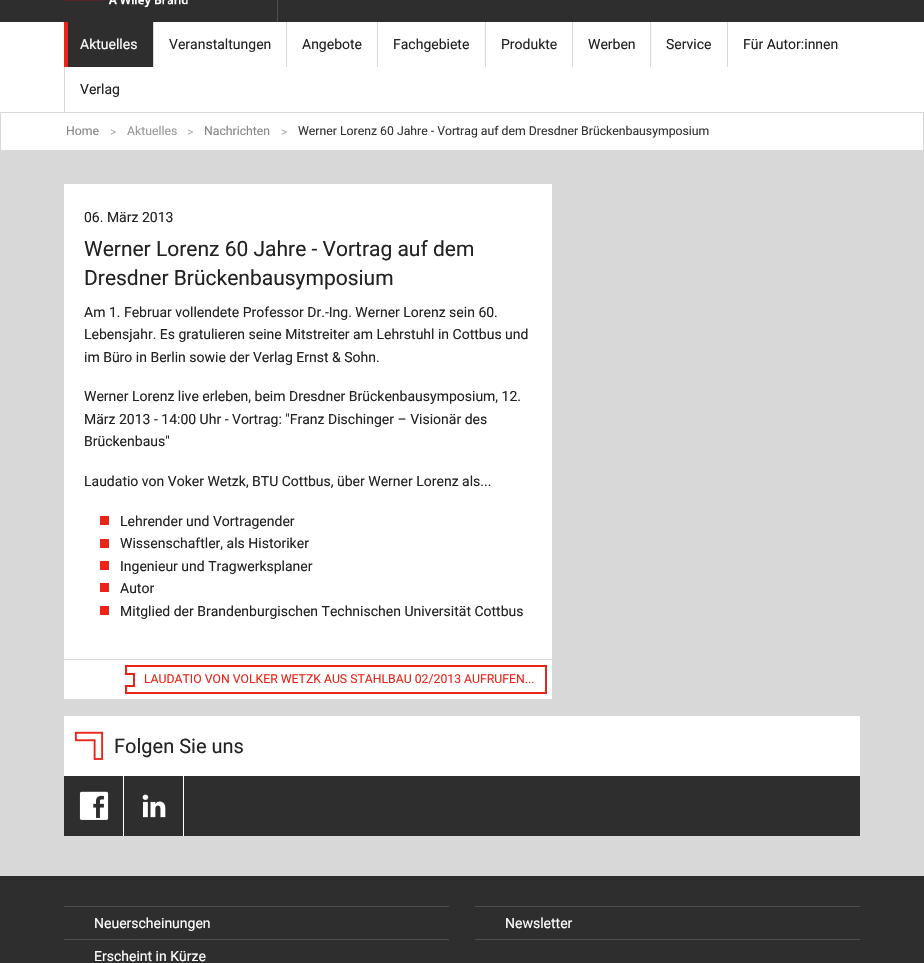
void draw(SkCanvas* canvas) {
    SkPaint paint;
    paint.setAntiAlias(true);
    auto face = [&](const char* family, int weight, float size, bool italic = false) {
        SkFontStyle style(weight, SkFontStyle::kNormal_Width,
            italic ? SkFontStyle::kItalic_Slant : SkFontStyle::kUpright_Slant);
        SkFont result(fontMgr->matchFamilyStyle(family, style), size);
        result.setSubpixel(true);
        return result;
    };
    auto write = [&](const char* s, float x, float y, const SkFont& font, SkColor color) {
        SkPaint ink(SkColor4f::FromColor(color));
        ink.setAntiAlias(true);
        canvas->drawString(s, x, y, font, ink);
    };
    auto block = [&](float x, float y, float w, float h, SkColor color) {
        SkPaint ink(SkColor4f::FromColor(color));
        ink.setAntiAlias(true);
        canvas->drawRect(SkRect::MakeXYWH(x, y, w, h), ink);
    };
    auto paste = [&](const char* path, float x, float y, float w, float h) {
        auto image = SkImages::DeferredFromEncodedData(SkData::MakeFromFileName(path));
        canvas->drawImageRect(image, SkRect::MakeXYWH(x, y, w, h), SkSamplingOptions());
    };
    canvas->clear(SkColorSetRGB(216, 216, 216));
    block(0, 0, 924, 22, SkColorSetRGB(46, 46, 46));
    block(277, 0, 1, 22, SkColorSetRGB(78, 78, 78));
    paste("pic1.png", 64, 0, 124, 8);
    block(0, 22, 924, 90, SK_ColorWHITE);
    block(68, 22, 85, 45, SkColorSetRGB(46, 46, 46));
    block(64, 22, 4, 45, SkColorSetRGB(235, 36, 24));
    auto kFont1 = face("Roboto", 400, 14);
    write("Aktuelles", 80, 49, kFont1, SK_ColorWHITE);
    block(153, 22, 1, 45, SkColorSetRGB(216, 216, 216));
    write("Veranstaltungen", 169, 49, kFont1, SkColorSetRGB(34, 34, 34));
    block(286, 22, 1, 45, SkColorSetRGB(216, 216, 216));
    write("Angebote", 302, 49, kFont1, SkColorSetRGB(34, 34, 34));
    block(377, 22, 1, 45, SkColorSetRGB(216, 216, 216));
    write("Fachgebiete", 393, 49, kFont1, SkColorSetRGB(34, 34, 34));
    block(485, 22, 1, 45, SkColorSetRGB(216, 216, 216));
    write("Produkte", 501, 49, kFont1, SkColorSetRGB(34, 34, 34));
    block(572, 22, 1, 45, SkColorSetRGB(216, 216, 216));
    write("Werben", 588, 49, kFont1, SkColorSetRGB(34, 34, 34));
    block(650, 22, 1, 45, SkColorSetRGB(216, 216, 216));
    write("Service", 666, 49, kFont1, SkColorSetRGB(34, 34, 34));
    block(727, 22, 1, 45, SkColorSetRGB(216, 216, 216));
    write("Für Autor:innen", 743, 49, kFont1, SkColorSetRGB(34, 34, 34));
    block(64, 67, 1, 45, SkColorSetRGB(216, 216, 216));
    write("Verlag", 80, 94, kFont1, SkColorSetRGB(34, 34, 34));
    block(1, 113, 922, 37, SK_ColorWHITE);
    auto kFont2 = face("Roboto", 400, 12.25f);
    write("Home", 66, 135, kFont2, SkColorSetRGB(134, 133, 133));
    write(">", 110, 136, kFont2, SkColorSetRGB(170, 170, 170));
    write("Aktuelles", 127, 135, kFont2, SkColorSetRGB(153, 153, 153));
    write(">", 187, 136, kFont2, SkColorSetRGB(170, 170, 170));
    write("Nachrichten", 204, 135, kFont2, SkColorSetRGB(134, 133, 133));
    write(">", 281, 136, kFont2, SkColorSetRGB(170, 170, 170));
    write("Werner Lorenz 60 Jahre - Vortrag auf dem Dresdner Brückenbausymposium", 298, 135, kFont2, SkColorSetRGB(51, 51, 51));
    block(64, 184, 488, 515, SK_ColorWHITE);
    write("06. März 2013", 84, 222, kFont1, SkColorSetRGB(34, 34, 34));
    auto kFont3 = face("Roboto", 400, 21);
    write("Werner Lorenz 60 Jahre - Vortrag auf dem", 84, 256, kFont3, SkColorSetRGB(34, 34, 34));
    write("Dresdner Brückenbausymposium", 84, 285, kFont3, SkColorSetRGB(34, 34, 34));
    write("Am 1. Februar vollendete Professor Dr.-Ing. Werner Lorenz sein 60.", 84, 317, kFont1, SkColorSetRGB(34, 34, 34));
    write("Lebensjahr. Es gratulieren seine Mitstreiter am Lehrstuhl in Cottbus und", 84, 339, kFont1, SkColorSetRGB(34, 34, 34));
    write("im Büro in Berlin sowie der Verlag Ernst & Sohn.", 84, 362, kFont1, SkColorSetRGB(34, 34, 34));
    write("Werner Lorenz live erleben, beim Dresdner Brückenbausymposium, 12.", 84, 401, kFont1, SkColorSetRGB(34, 34, 34));
    write("März 2013 - 14:00 Uhr - Vortrag: \"Franz Dischinger – Visionär des", 84, 424, kFont1, SkColorSetRGB(34, 34, 34));
    write("Brückenbaus\"", 84, 446, kFont1, SkColorSetRGB(34, 34, 34));
    write("Laudatio von Voker Wetzk, BTU Cottbus, über Werner Lorenz als...", 84, 486, kFont1, SkColorSetRGB(34, 34, 34));
    block(100, 516, 9, 9, SkColorSetRGB(235, 36, 24));
    write("Lehrender und Vortragender", 120, 526, kFont1, SkColorSetRGB(34, 34, 34));
    block(100, 539, 9, 9, SkColorSetRGB(235, 36, 24));
    write("Wissenschaftler, als Historiker", 120, 548, kFont1, SkColorSetRGB(34, 34, 34));
    block(100, 561, 9, 9, SkColorSetRGB(235, 36, 24));
    write("Ingenieur und Tragwerksplaner", 120, 571, kFont1, SkColorSetRGB(34, 34, 34));
    block(100, 583, 9, 9, SkColorSetRGB(235, 36, 24));
    write("Autor", 120, 593, kFont1, SkColorSetRGB(34, 34, 34));
    block(100, 606, 9, 9, SkColorSetRGB(235, 36, 24));
    write("Mitglied der Brandenburgischen Technischen Universität Cottbus", 120, 616, kFont1, SkColorSetRGB(34, 34, 34));
    block(64, 659, 488, 1, SkColorSetRGB(216, 216, 216));
    paint.setStyle(SkPaint::kStroke_Style);
    paint.setStrokeWidth(2);
    paint.setColor(SkColorSetRGB(235, 36, 24));
    canvas->drawRect(SkRect::MakeXYWH(134, 666, 412, 27), paint);
    block(127, 667, 8, 6, SK_ColorWHITE);
    block(125, 665, 10, 2, SkColorSetRGB(235, 36, 24));
    block(125, 673, 10, 2, SkColorSetRGB(235, 36, 24));
    block(125, 665, 2, 10, SkColorSetRGB(235, 36, 24));
    write("LAUDATIO VON VOLKER WETZK AUS STAHLBAU 02/2013 AUFRUFEN...", 144, 683, kFont2, SkColorSetRGB(235, 36, 24));
    block(127, 687, 8, 5, SK_ColorWHITE);
    block(125, 685, 10, 2, SkColorSetRGB(235, 36, 24));
    block(125, 692, 10, 2, SkColorSetRGB(235, 36, 24));
    block(125, 685, 2, 9, SkColorSetRGB(235, 36, 24));
    block(64, 716, 796, 60, SK_ColorWHITE);
    paste("pic2.png", 74, 731, 30, 29);
    auto kFont4 = face("Roboto", 400, 20);
    write("Folgen Sie uns", 114, 753, kFont4, SkColorSetRGB(34, 34, 34));
    block(64, 776, 796, 60, SkColorSetRGB(46, 46, 46));
    block(123, 776, 1, 60, SK_ColorWHITE);
    paste("pic3.png", 79, 791, 30, 29);
    block(183, 776, 1, 60, SK_ColorWHITE);
    paste("pic4.png", 142, 794, 24, 24);
    block(0, 876, 924, 87, SkColorSetRGB(46, 46, 46));
    block(64, 906, 385, 1, SkColorSetRGB(78, 78, 78));
    block(64, 939, 385, 1, SkColorSetRGB(78, 78, 78));
    write("Neuerscheinungen", 94, 928, kFont1, SK_ColorWHITE);
    write("Erscheint in Kürze", 94, 961, kFont1, SK_ColorWHITE);
    block(475, 906, 385, 1, SkColorSetRGB(78, 78, 78));
    block(475, 939, 385, 1, SkColorSetRGB(78, 78, 78));
    write("Newsletter", 505, 928, kFont1, SK_ColorWHITE);
}
